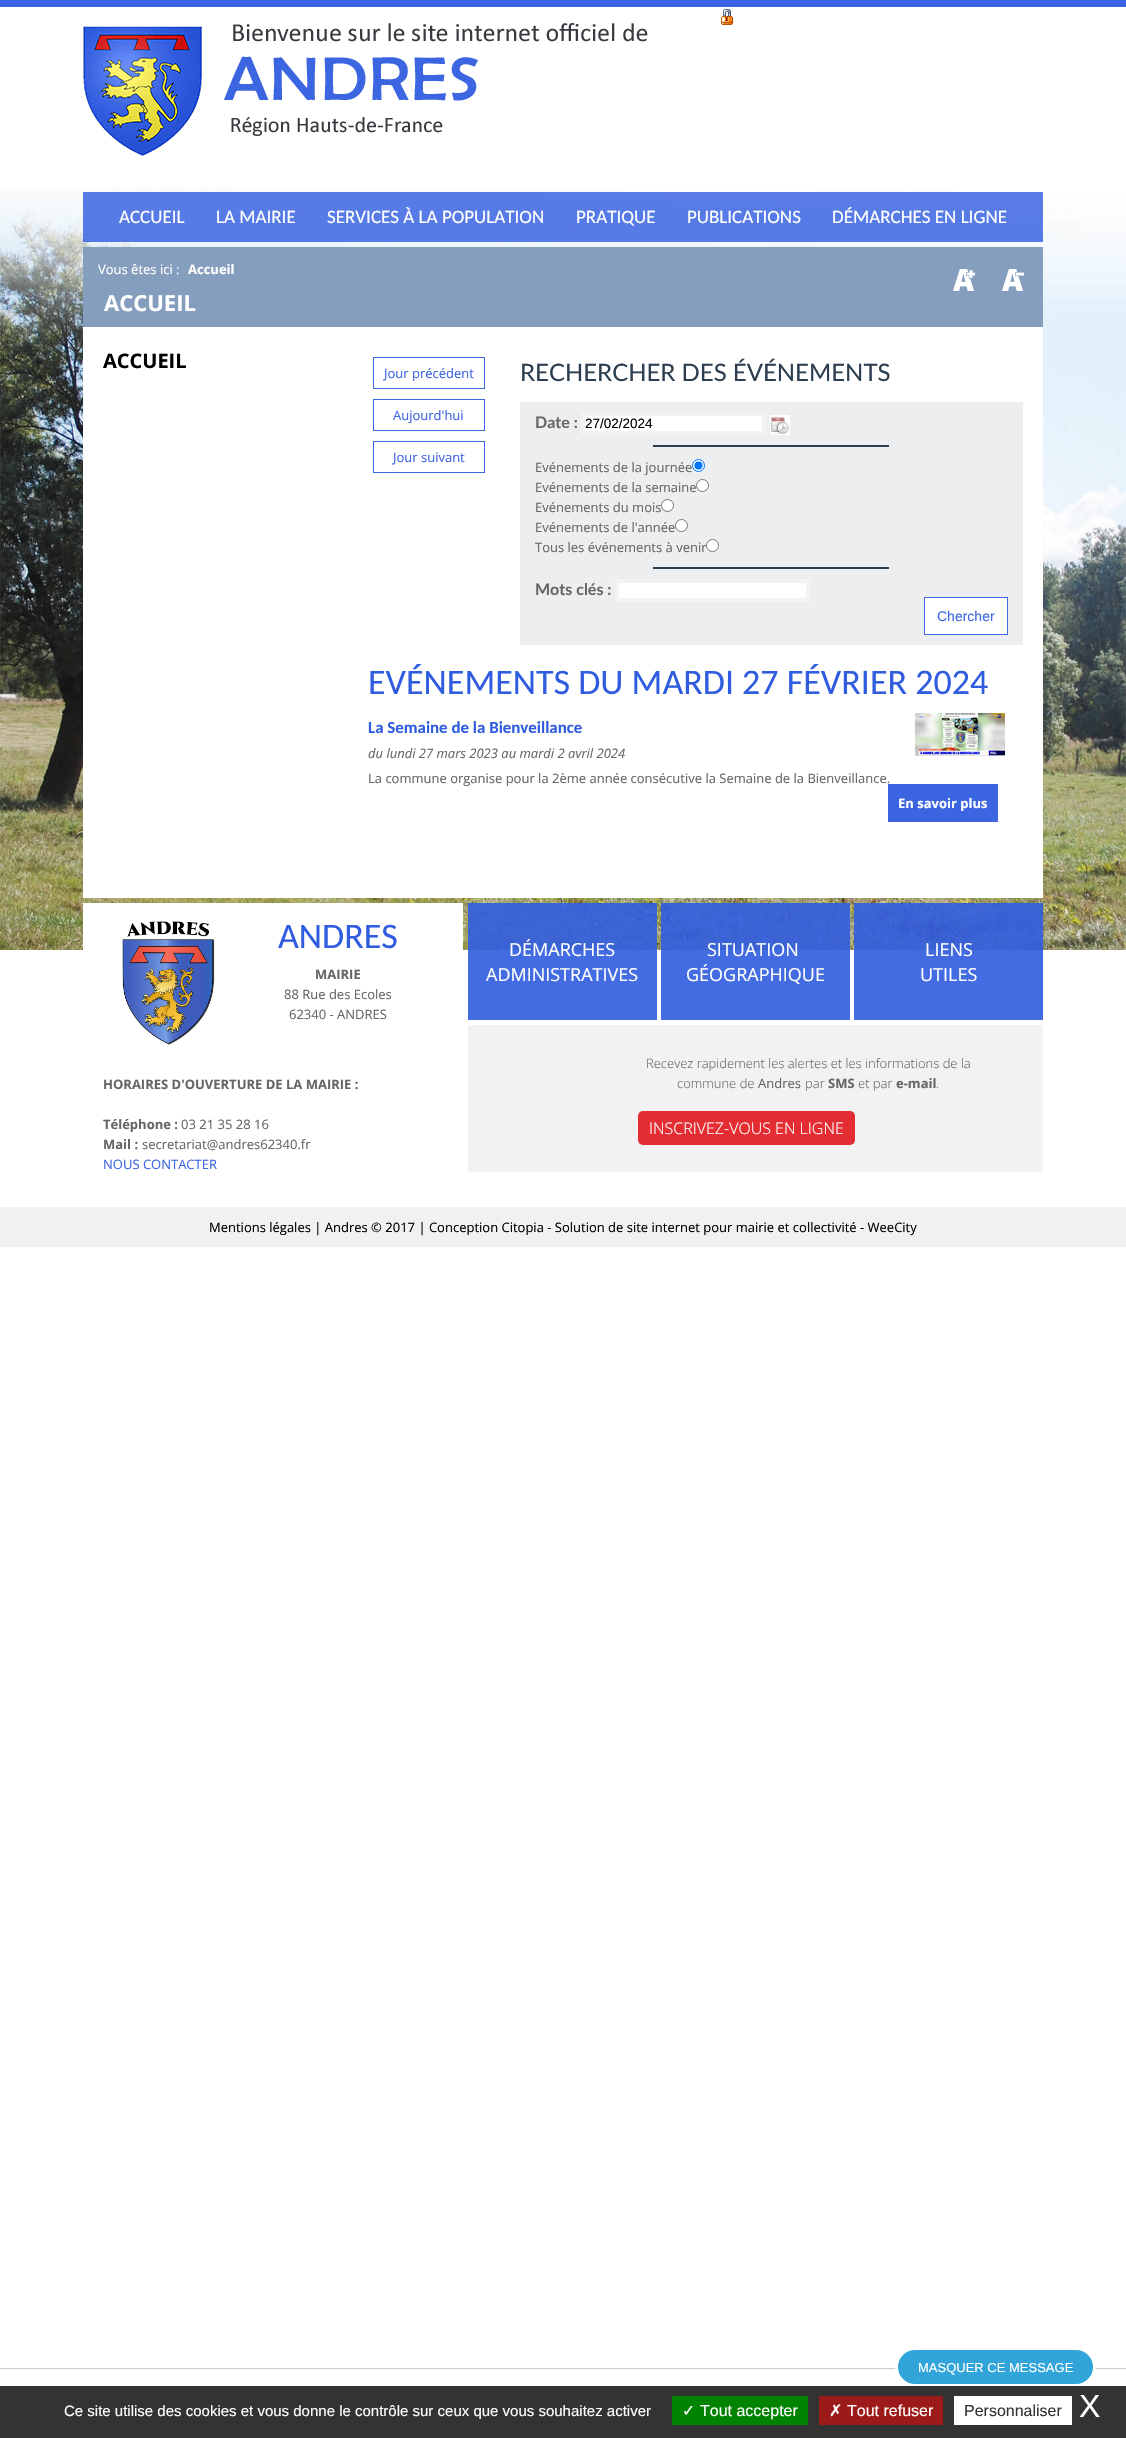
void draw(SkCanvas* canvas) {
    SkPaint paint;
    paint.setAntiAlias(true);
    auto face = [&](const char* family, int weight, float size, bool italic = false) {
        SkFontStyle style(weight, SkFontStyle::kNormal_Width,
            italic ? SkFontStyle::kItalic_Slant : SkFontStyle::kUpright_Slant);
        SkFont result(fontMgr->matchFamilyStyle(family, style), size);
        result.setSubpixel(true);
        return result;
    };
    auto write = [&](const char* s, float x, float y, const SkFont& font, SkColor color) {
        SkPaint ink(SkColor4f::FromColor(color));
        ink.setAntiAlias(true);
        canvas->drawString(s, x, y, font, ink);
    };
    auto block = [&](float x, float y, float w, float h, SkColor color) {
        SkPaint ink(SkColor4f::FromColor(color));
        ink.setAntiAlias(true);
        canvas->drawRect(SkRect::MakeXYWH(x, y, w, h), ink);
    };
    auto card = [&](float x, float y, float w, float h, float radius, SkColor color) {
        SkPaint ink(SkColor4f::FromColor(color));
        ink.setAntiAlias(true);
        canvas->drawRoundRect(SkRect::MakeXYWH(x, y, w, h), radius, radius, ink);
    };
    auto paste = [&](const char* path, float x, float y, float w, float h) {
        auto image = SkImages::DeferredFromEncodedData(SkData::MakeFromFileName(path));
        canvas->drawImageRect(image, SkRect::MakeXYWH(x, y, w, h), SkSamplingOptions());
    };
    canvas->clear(SK_ColorWHITE);
    paste("pic1.png", 721, 9, 12, 16);
    paste("pic2.png", 0, 187, 1126, 763);
    block(0, 0, 1126, 7, SkColorSetRGB(59, 100, 226));
    paste("pic3.png", 83, 23, 565, 133);
    block(83, 192, 960, 50, SkColorSetARGB(217, 59, 100, 226));
    auto kFont1 = face("Carlito", 400, 19);
    write("ACCUEIL", 119, 223, kFont1, SK_ColorWHITE);
    write("LA MAIRIE", 216, 223, kFont1, SK_ColorWHITE);
    write("SERVICES À LA POPULATION", 327, 223, kFont1, SK_ColorWHITE);
    write("PRATIQUE", 576, 223, kFont1, SK_ColorWHITE);
    write("PUBLICATIONS", 687, 223, kFont1, SK_ColorWHITE);
    write("DÉMARCHES EN LIGNE", 832, 223, kFont1, SK_ColorWHITE);
    block(83, 247, 960, 80, SkColorSetRGB(133, 158, 189));
    auto kFont2 = face("Open Sans", 400, 13);
    write("Vous êtes ici :", 98, 274, kFont2, SK_ColorWHITE);
    auto kFont3 = face("Open Sans", 700, 13);
    write("Accueil", 188, 274, kFont3, SK_ColorWHITE);
    auto kFont4 = face("Open Sans", 700, 22);
    write("ACCUEIL", 104, 311, kFont4, SK_ColorWHITE);
    paste("pic4.png", 953, 269, 22, 22);
    paste("pic5.png", 1002, 269, 22, 22);
    block(83, 327, 960, 571, SK_ColorWHITE);
    auto kFont5 = face("Open Sans", 700, 20);
    write("ACCUEIL", 103, 368, kFont5, SK_ColorBLACK);
    paint.setStyle(SkPaint::kStroke_Style);
    paint.setStrokeWidth(1);
    paint.setColor(SkColorSetRGB(60, 101, 225));
    canvas->drawRect(SkRect::MakeXYWH(373.5f, 357.5f, 111, 31), paint);
    write("Jour précédent", 384, 378, kFont2, SkColorSetRGB(60, 101, 225));
    canvas->drawRect(SkRect::MakeXYWH(373.5f, 399.5f, 111, 31), paint);
    write("Aujourd'hui", 393, 420, kFont2, SkColorSetRGB(60, 101, 225));
    canvas->drawRect(SkRect::MakeXYWH(373.5f, 441.5f, 111, 31), paint);
    write("Jour suivant", 393, 462, kFont2, SkColorSetRGB(60, 101, 225));
    auto kFont6 = face("Lato", 400, 24);
    write("RECHERCHER DES ÉVÉNEMENTS", 520, 381, kFont6, SkColorSetRGB(44, 62, 80));
    block(520, 402, 503, 243, SkColorSetRGB(236, 238, 239));
    auto kFont7 = face("Lato", 700, 16);
    write("Date :", 535, 428, kFont7, SkColorSetRGB(102, 102, 102));
    paint.setStyle(SkPaint::kFill_Style);
    paint.setColor(SK_ColorWHITE);
    canvas->drawRect(SkRect::MakeXYWH(583, 414, 181, 19), paint);
    paint.setStyle(SkPaint::kStroke_Style);
    paint.setStrokeWidth(4);
    paint.setColor(SkColorSetRGB(243, 243, 243));
    canvas->drawRect(SkRect::MakeXYWH(583, 414, 181, 19), paint);
    auto kFont8 = face("Liberation Sans", 400, 13.5f);
    write("27/02/2024", 585, 428, kFont8, SK_ColorBLACK);
    paste("pic6.png", 770, 415, 20, 20);
    block(653, 445, 236, 2, SkColorSetRGB(44, 62, 80));
    write("Evénements de la journée", 535, 472, kFont2, SkColorSetRGB(102, 102, 102));
    paint.setStyle(SkPaint::kFill_Style);
    paint.setColor(SK_ColorWHITE);
    canvas->drawCircle(698.5f, 465.5f, 6, paint);
    paint.setStyle(SkPaint::kStroke_Style);
    paint.setStrokeWidth(1);
    paint.setColor(SkColorSetRGB(0, 117, 255));
    canvas->drawCircle(698.5f, 465.5f, 6, paint);
    paint.setStyle(SkPaint::kFill_Style);
    canvas->drawCircle(698.5f, 465.5f, 4, paint);
    write("Evénements de la semaine", 535, 492, kFont2, SkColorSetRGB(102, 102, 102));
    paint.setColor(SK_ColorWHITE);
    canvas->drawCircle(702.5f, 485.5f, 6, paint);
    paint.setStyle(SkPaint::kStroke_Style);
    paint.setColor(SkColorSetRGB(118, 118, 118));
    canvas->drawCircle(702.5f, 485.5f, 6, paint);
    write("Evénements du mois", 535, 512, kFont2, SkColorSetRGB(102, 102, 102));
    paint.setStyle(SkPaint::kFill_Style);
    paint.setColor(SK_ColorWHITE);
    canvas->drawCircle(667.5f, 505.5f, 6, paint);
    paint.setStyle(SkPaint::kStroke_Style);
    paint.setColor(SkColorSetRGB(118, 118, 118));
    canvas->drawCircle(667.5f, 505.5f, 6, paint);
    write("Evénements de l'année", 535, 532, kFont2, SkColorSetRGB(102, 102, 102));
    paint.setStyle(SkPaint::kFill_Style);
    paint.setColor(SK_ColorWHITE);
    canvas->drawCircle(681.5f, 525.5f, 6, paint);
    paint.setStyle(SkPaint::kStroke_Style);
    paint.setColor(SkColorSetRGB(118, 118, 118));
    canvas->drawCircle(681.5f, 525.5f, 6, paint);
    write("Tous les événements à venir", 535, 552, kFont2, SkColorSetRGB(102, 102, 102));
    paint.setStyle(SkPaint::kFill_Style);
    paint.setColor(SK_ColorWHITE);
    canvas->drawCircle(712.5f, 545.5f, 6, paint);
    paint.setStyle(SkPaint::kStroke_Style);
    paint.setColor(SkColorSetRGB(118, 118, 118));
    canvas->drawCircle(712.5f, 545.5f, 6, paint);
    block(653, 567, 236, 2, SkColorSetRGB(44, 62, 80));
    write("Mots clés :", 535, 595, kFont7, SkColorSetRGB(102, 102, 102));
    paint.setStyle(SkPaint::kFill_Style);
    paint.setColor(SK_ColorWHITE);
    canvas->drawRect(SkRect::MakeXYWH(617, 581, 191, 19), paint);
    paint.setStyle(SkPaint::kStroke_Style);
    paint.setStrokeWidth(4);
    paint.setColor(SkColorSetRGB(243, 243, 243));
    canvas->drawRect(SkRect::MakeXYWH(617, 581, 191, 19), paint);
    paint.setStyle(SkPaint::kFill_Style);
    paint.setColor(SK_ColorWHITE);
    canvas->drawRect(SkRect::MakeXYWH(924.5f, 597.5f, 83, 37), paint);
    paint.setStyle(SkPaint::kStroke_Style);
    paint.setStrokeWidth(1);
    paint.setColor(SkColorSetRGB(60, 101, 225));
    canvas->drawRect(SkRect::MakeXYWH(924.5f, 597.5f, 83, 37), paint);
    auto kFont9 = face("Liberation Sans", 400, 14);
    write("Chercher", 937, 621, kFont9, SkColorSetRGB(60, 101, 225));
    auto kFont10 = face("Carlito", 400, 36);
    write("EVÉNEMENTS DU MARDI 27 FÉVRIER 2024", 368, 694, kFont10, SkColorSetRGB(48, 92, 223));
    auto kFont11 = face("Carlito", 700, 16.9f);
    write("La Semaine de la Bienveillance", 368, 733, kFont11, SkColorSetRGB(48, 92, 223));
    paste("pic7.png", 915, 713, 90, 43);
    auto kFont12 = face("Open Sans", 400, 13, true);
    write("du lundi 27 mars 2023 au mardi 2 avril 2024", 368, 758, kFont12, SkColorSetRGB(102, 102, 102));
    write("La commune organise pour la 2ème année consécutive la Semaine de la Bienveillance.", 368, 783, kFont2, SkColorSetRGB(102, 102, 102));
    block(888, 784, 110, 38, SkColorSetRGB(60, 101, 225));
    write("En savoir plus", 898, 808, kFont3, SK_ColorWHITE);
    block(0, 2368, 1126, 1, SkColorSetRGB(204, 204, 204));
    paint.setStyle(SkPaint::kFill_Style);
    paint.setColor(SkColorSetRGB(49, 165, 218));
    canvas->drawRoundRect(SkRect::MakeXYWH(896.5f, 2348.5f, 198, 37), 18.5f, 18.5f, paint);
    paint.setStyle(SkPaint::kStroke_Style);
    paint.setStrokeWidth(3);
    paint.setColor(SK_ColorWHITE);
    canvas->drawRoundRect(SkRect::MakeXYWH(896.5f, 2348.5f, 198, 37), 18.5f, 18.5f, paint);
    auto kFont13 = face("Liberation Sans", 400, 13);
    write("MASQUER CE MESSAGE", 918, 2372, kFont13, SK_ColorWHITE);
    block(83, 903, 380, 47, SK_ColorWHITE);
    paste("pic8.png", 122, 921, 93, 124);
    write("ANDRES", 278, 948, kFont10, SkColorSetRGB(48, 92, 223));
    write("MAIRIE", 315, 979, kFont3, SkColorSetRGB(102, 102, 102));
    write("88 Rue des Ecoles", 284, 999, kFont2, SkColorSetRGB(102, 102, 102));
    write("62340 - ANDRES", 289, 1019, kFont2, SkColorSetRGB(102, 102, 102));
    write("HORAIRES D'OUVERTURE DE LA MAIRIE :", 103, 1089, kFont3, SkColorSetRGB(102, 102, 102));
    write("Téléphone :", 103, 1129, kFont3, SkColorSetRGB(102, 102, 102));
    write("03 21 35 28 16", 181, 1129, kFont2, SkColorSetRGB(102, 102, 102));
    write("Mail :", 103, 1149, kFont3, SkColorSetRGB(102, 102, 102));
    write("secretariat@andres62340.fr", 142, 1149, kFont2, SkColorSetRGB(102, 102, 102));
    write("NOUS CONTACTER", 103, 1169, kFont2, SkColorSetRGB(60, 101, 225));
    block(468, 903, 189, 117, SkColorSetARGB(230, 48, 92, 223));
    auto kFont14 = face("Open Sans", 400, 18);
    write("DÉMARCHES", 509, 956, kFont14, SK_ColorWHITE);
    write("ADMINISTRATIVES", 486, 981, kFont14, SK_ColorWHITE);
    block(661, 903, 189, 117, SkColorSetARGB(230, 48, 92, 223));
    write("SITUATION", 707, 956, kFont14, SK_ColorWHITE);
    write("GÉOGRAPHIQUE", 686, 981, kFont14, SK_ColorWHITE);
    block(854, 903, 189, 117, SkColorSetARGB(230, 48, 92, 223));
    write("LIENS", 925, 956, kFont14, SK_ColorWHITE);
    write("UTILES", 920, 981, kFont14, SK_ColorWHITE);
    block(468, 1025, 575, 147, SkColorSetRGB(242, 242, 242));
    auto kFont15 = face("Open Sans", 300, 13);
    write("Recevez rapidement les alertes et les informations de la", 646, 1068, kFont15, SkColorSetRGB(102, 102, 102));
    write("commune de", 677, 1088, kFont15, SkColorSetRGB(102, 102, 102));
    write("Andres", 758, 1088, kFont2, SkColorSetRGB(102, 102, 102));
    write("par", 805, 1088, kFont15, SkColorSetRGB(102, 102, 102));
    write("SMS", 828, 1088, kFont3, SkColorSetRGB(102, 102, 102));
    write("et par", 858, 1088, kFont15, SkColorSetRGB(102, 102, 102));
    write("e-mail", 896, 1088, kFont3, SkColorSetRGB(102, 102, 102));
    write(".", 936, 1088, kFont15, SkColorSetRGB(102, 102, 102));
    card(638, 1111, 217, 34, 5, SkColorSetRGB(227, 45, 50));
    auto kFont16 = face("Open Sans", 300, 16);
    write("INSCRIVEZ-VOUS EN LIGNE", 649, 1134, kFont16, SK_ColorWHITE);
    block(0, 1207, 1126, 40, SkColorSetRGB(241, 241, 241));
    write("Mentions légales | Andres © 2017 | Conception Citopia - Solution de site internet pour mairie et collectivité - WeeCity", 209, 1232, kFont2, SK_ColorBLACK);
    block(0, 2386, 1126, 52, SkColorSetRGB(51, 51, 51));
    auto kFont17 = face("Liberation Sans", 400, 15);
    write("Ce site utilise des cookies et vous donne le contrôle sur ceux que vous souhaitez activer", 64, 2416, kFont17, SK_ColorWHITE);
    block(672, 2396, 136, 29, SkColorSetRGB(0, 131, 0));
    auto kFont18 = face("DejaVu Sans", 400, 16);
    write("✓", 682, 2416, kFont18, SK_ColorWHITE);
    auto kFont19 = face("Liberation Sans", 400, 16);
    write("Tout accepter", 700, 2416, kFont19, SK_ColorWHITE);
    block(819, 2396, 124, 29, SkColorSetRGB(156, 26, 26));
    write("✗", 829, 2416, kFont18, SK_ColorWHITE);
    write("Tout refuser", 847, 2416, kFont19, SK_ColorWHITE);
    block(954, 2396, 118, 29, SK_ColorWHITE);
    write("Personnaliser", 964, 2416, kFont19, SkColorSetRGB(51, 51, 51));
    auto kFont20 = face("Liberation Sans", 400, 32);
    write("X", 1079, 2417, kFont20, SK_ColorWHITE);
}
